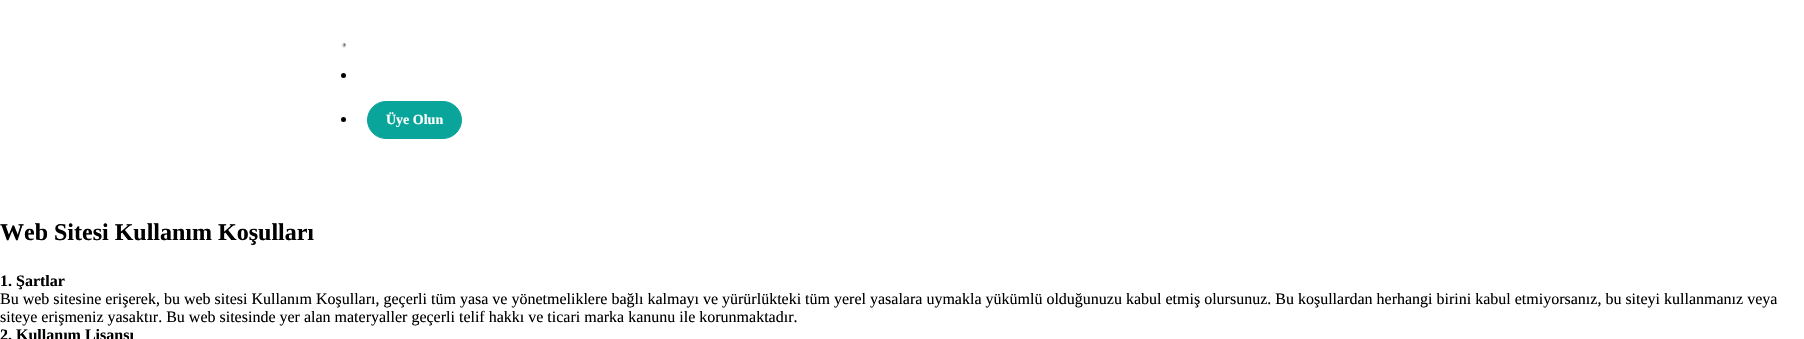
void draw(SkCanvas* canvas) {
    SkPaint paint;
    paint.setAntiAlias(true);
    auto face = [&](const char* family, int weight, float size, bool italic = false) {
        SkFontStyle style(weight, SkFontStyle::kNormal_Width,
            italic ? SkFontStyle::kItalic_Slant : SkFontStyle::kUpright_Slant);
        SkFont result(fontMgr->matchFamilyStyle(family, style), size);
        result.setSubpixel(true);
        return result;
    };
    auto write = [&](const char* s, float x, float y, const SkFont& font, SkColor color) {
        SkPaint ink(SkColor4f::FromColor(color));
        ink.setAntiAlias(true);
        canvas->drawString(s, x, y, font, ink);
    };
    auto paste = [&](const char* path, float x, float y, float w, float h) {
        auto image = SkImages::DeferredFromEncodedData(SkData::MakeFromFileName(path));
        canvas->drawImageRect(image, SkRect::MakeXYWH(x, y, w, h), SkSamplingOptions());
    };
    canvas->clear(SK_ColorWHITE);
    paint.setColor(SK_ColorBLACK);
    canvas->drawCircle(343.5f, 45.5f, 2.5f, paint);
    paste("pic1.png", 341, 13, 5, 35);
    canvas->drawCircle(343.5f, 75.5f, 2.5f, paint);
    canvas->drawCircle(343.5f, 119.5f, 2.5f, paint);
    paint.setColor(SkColorSetRGB(9, 165, 154));
    canvas->drawRoundRect(SkRect::MakeXYWH(367.5f, 101.5f, 94, 37), 18.5f, 18.5f, paint);
    paint.setStyle(SkPaint::kStroke_Style);
    paint.setStrokeWidth(1);
    canvas->drawRoundRect(SkRect::MakeXYWH(367.5f, 101.5f, 94, 37), 18.5f, 18.5f, paint);
    auto kFont1 = face("Liberation Serif", 700, 14);
    write("Üye Olun", 386, 124, kFont1, SK_ColorWHITE);
    auto kFont2 = face("Liberation Serif", 700, 24);
    write("Web Sitesi Kullanım Koşulları", 0, 240, kFont2, SK_ColorBLACK);
    auto kFont3 = face("Liberation Serif", 700, 16);
    write("1. Şartlar", 0, 286, kFont3, SK_ColorBLACK);
    auto kFont4 = face("Liberation Serif", 400, 16);
    write("Bu web sitesine erişerek, bu web sitesi Kullanım Koşulları, geçerli tüm yasa ve yönetmeliklere bağlı kalmayı ve yürürlükteki tüm yerel yasalara uymakla yükümlü olduğunuzu kabul etmiş olursunuz. Bu koşullardan herhangi birini kabul etmiyorsanız, bu siteyi kullanmanız veya", 0, 304, kFont4, SK_ColorBLACK);
    write("siteye erişmeniz yasaktır. Bu web sitesinde yer alan materyaller geçerli telif hakkı ve ticari marka kanunu ile korunmaktadır.", 0, 322, kFont4, SK_ColorBLACK);
    write("2. Kullanım Lisansı", 0, 340, kFont3, SK_ColorBLACK);
}
